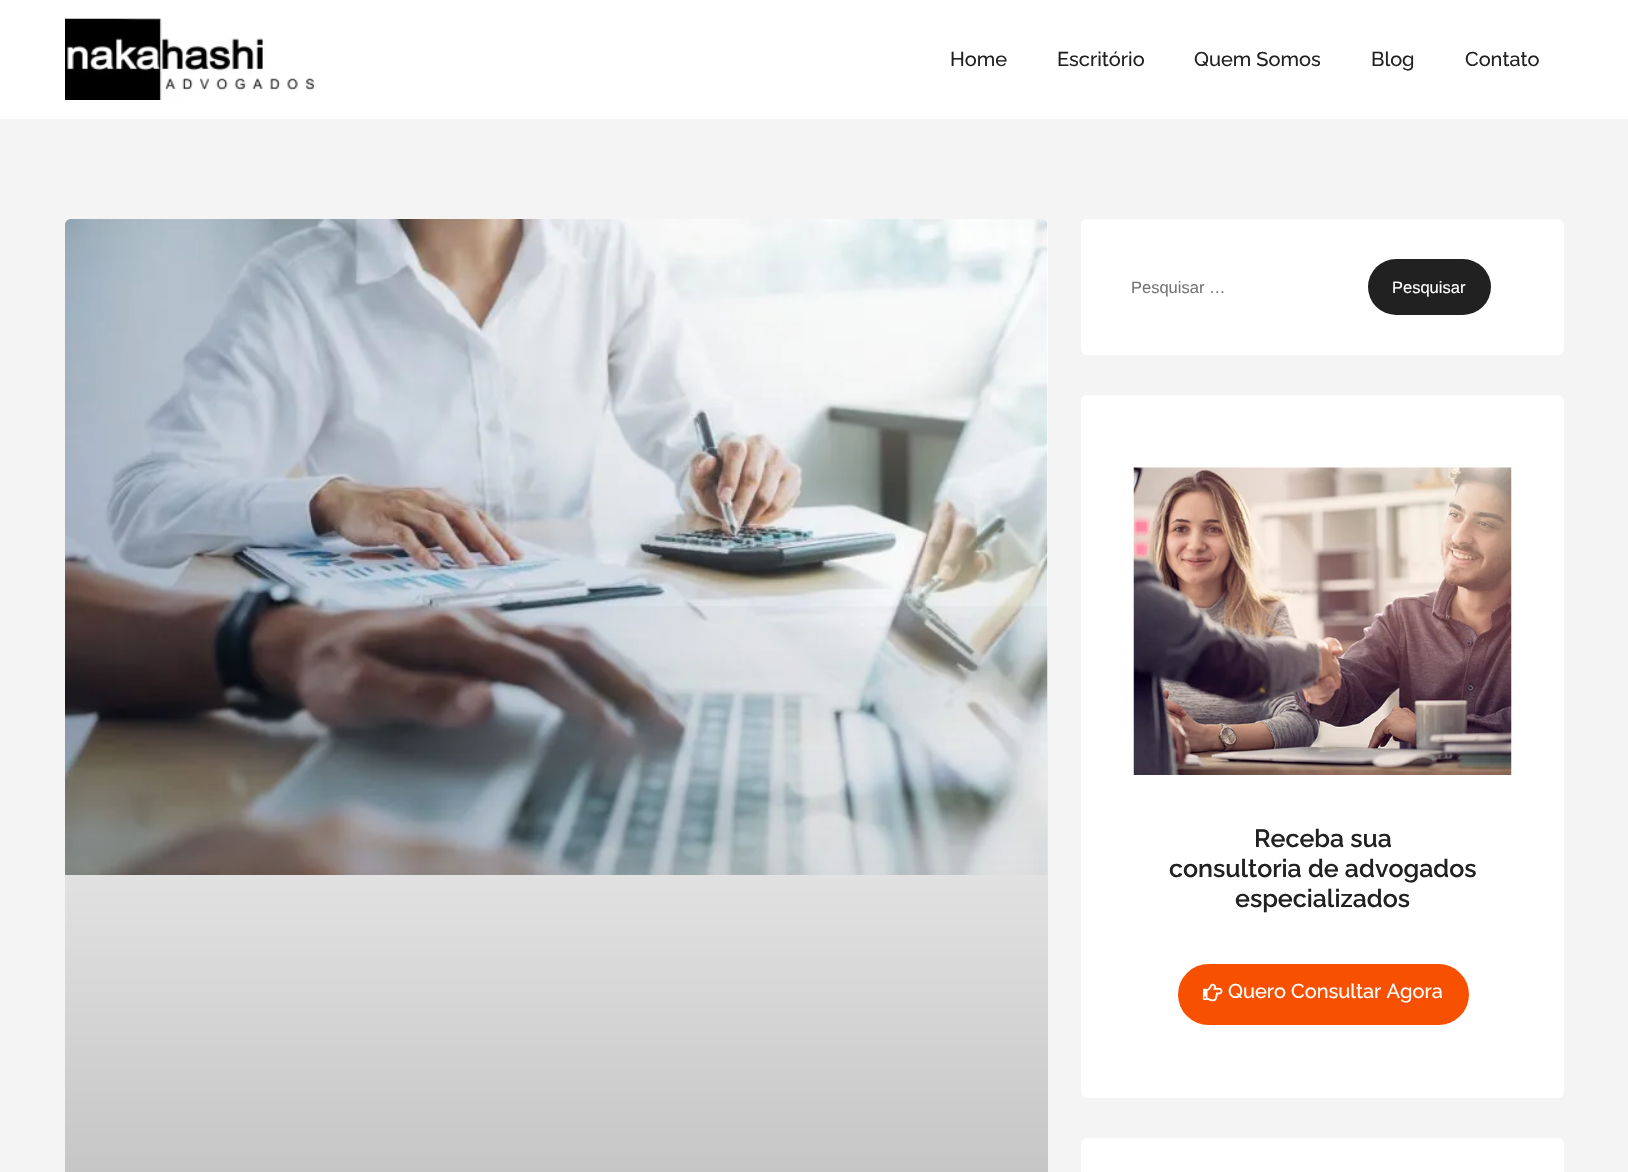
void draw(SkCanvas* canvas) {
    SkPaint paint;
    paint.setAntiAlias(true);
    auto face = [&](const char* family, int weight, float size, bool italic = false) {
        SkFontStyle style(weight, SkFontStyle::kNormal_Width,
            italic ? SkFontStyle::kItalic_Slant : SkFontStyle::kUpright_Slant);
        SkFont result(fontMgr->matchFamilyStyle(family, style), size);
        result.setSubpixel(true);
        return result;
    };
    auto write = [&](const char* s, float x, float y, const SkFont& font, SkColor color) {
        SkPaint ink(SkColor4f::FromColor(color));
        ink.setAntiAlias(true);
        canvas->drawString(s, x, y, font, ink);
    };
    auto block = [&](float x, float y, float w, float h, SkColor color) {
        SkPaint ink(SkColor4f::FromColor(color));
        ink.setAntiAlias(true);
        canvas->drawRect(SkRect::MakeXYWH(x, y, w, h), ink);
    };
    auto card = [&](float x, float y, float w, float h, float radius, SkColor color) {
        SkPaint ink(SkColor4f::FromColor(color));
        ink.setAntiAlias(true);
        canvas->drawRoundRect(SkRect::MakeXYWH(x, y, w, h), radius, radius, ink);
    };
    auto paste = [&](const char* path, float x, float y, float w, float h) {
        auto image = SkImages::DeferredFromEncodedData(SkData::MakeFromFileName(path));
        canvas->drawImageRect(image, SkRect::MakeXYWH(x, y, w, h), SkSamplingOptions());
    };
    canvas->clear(SkColorSetRGB(244, 244, 244));
    block(0, 0, 1628, 119, SK_ColorWHITE);
    paste("pic1.png", 65, 18, 249, 82);
    auto kFont1 = face("Raleway", 500, 20);
    write("Home", 950, 66, kFont1, SkColorSetRGB(33, 33, 33));
    write("Escritório", 1057, 66, kFont1, SkColorSetRGB(33, 33, 33));
    write("Quem Somos", 1194, 66, kFont1, SkColorSetRGB(33, 33, 33));
    write("Blog", 1371, 66, kFont1, SkColorSetRGB(33, 33, 33));
    write("Contato", 1465, 66, kFont1, SkColorSetRGB(33, 33, 33));
    card(65, 219, 983, 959, 6, SK_ColorWHITE);
    paste("pic2.png", 65, 219, 983, 656);
    {
        const SkColor colors[] = {SkColorSetARGB(89, 0, 0, 0), SkColorSetARGB(0, 0, 0, 0)};
        const float stops[] = {0, 0.75f};
        const SkPoint ends[] = {{556, 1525}, {556, 219}};
        paint.setShader(SkGradientShader::MakeLinear(ends, colors, stops, 2, SkTileMode::kClamp));
        paint.setAlpha(255);
    }
    canvas->drawRect(SkRect::MakeXYWH(65, 606, 983, 566), paint);
    card(1081, 219, 483, 136, 6, SK_ColorWHITE);
    auto kFont2 = face("Liberation Sans", 400, 16.5f);
    write("Pesquisar …", 1131, 293, kFont2, SkColorSetRGB(117, 117, 117));
    card(1368, 259, 123, 56, 28, SkColorSetRGB(33, 33, 33));
    write("Pesquisar", 1392, 293, kFont2, SK_ColorWHITE);
    card(1081, 395, 483, 703, 6, SK_ColorWHITE);
    paste("pic3.png", 1133, 467, 379, 308);
    auto kFont3 = face("Raleway", 600, 25);
    write("Receba sua", 1254, 847, kFont3, SkColorSetRGB(33, 33, 33));
    write("consultoria de advogados", 1169, 877, kFont3, SkColorSetRGB(33, 33, 33));
    write("especializados", 1235, 907, kFont3, SkColorSetRGB(33, 33, 33));
    card(1178, 964, 291, 61, 30.5f, SkColorSetRGB(247, 80, 0));
    paste("pic4.png", 1203, 983, 20, 19);
    write("Quero Consultar Agora", 1228, 998, kFont1, SK_ColorWHITE);
    card(1081, 1138, 483, 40, 6, SK_ColorWHITE);
}
